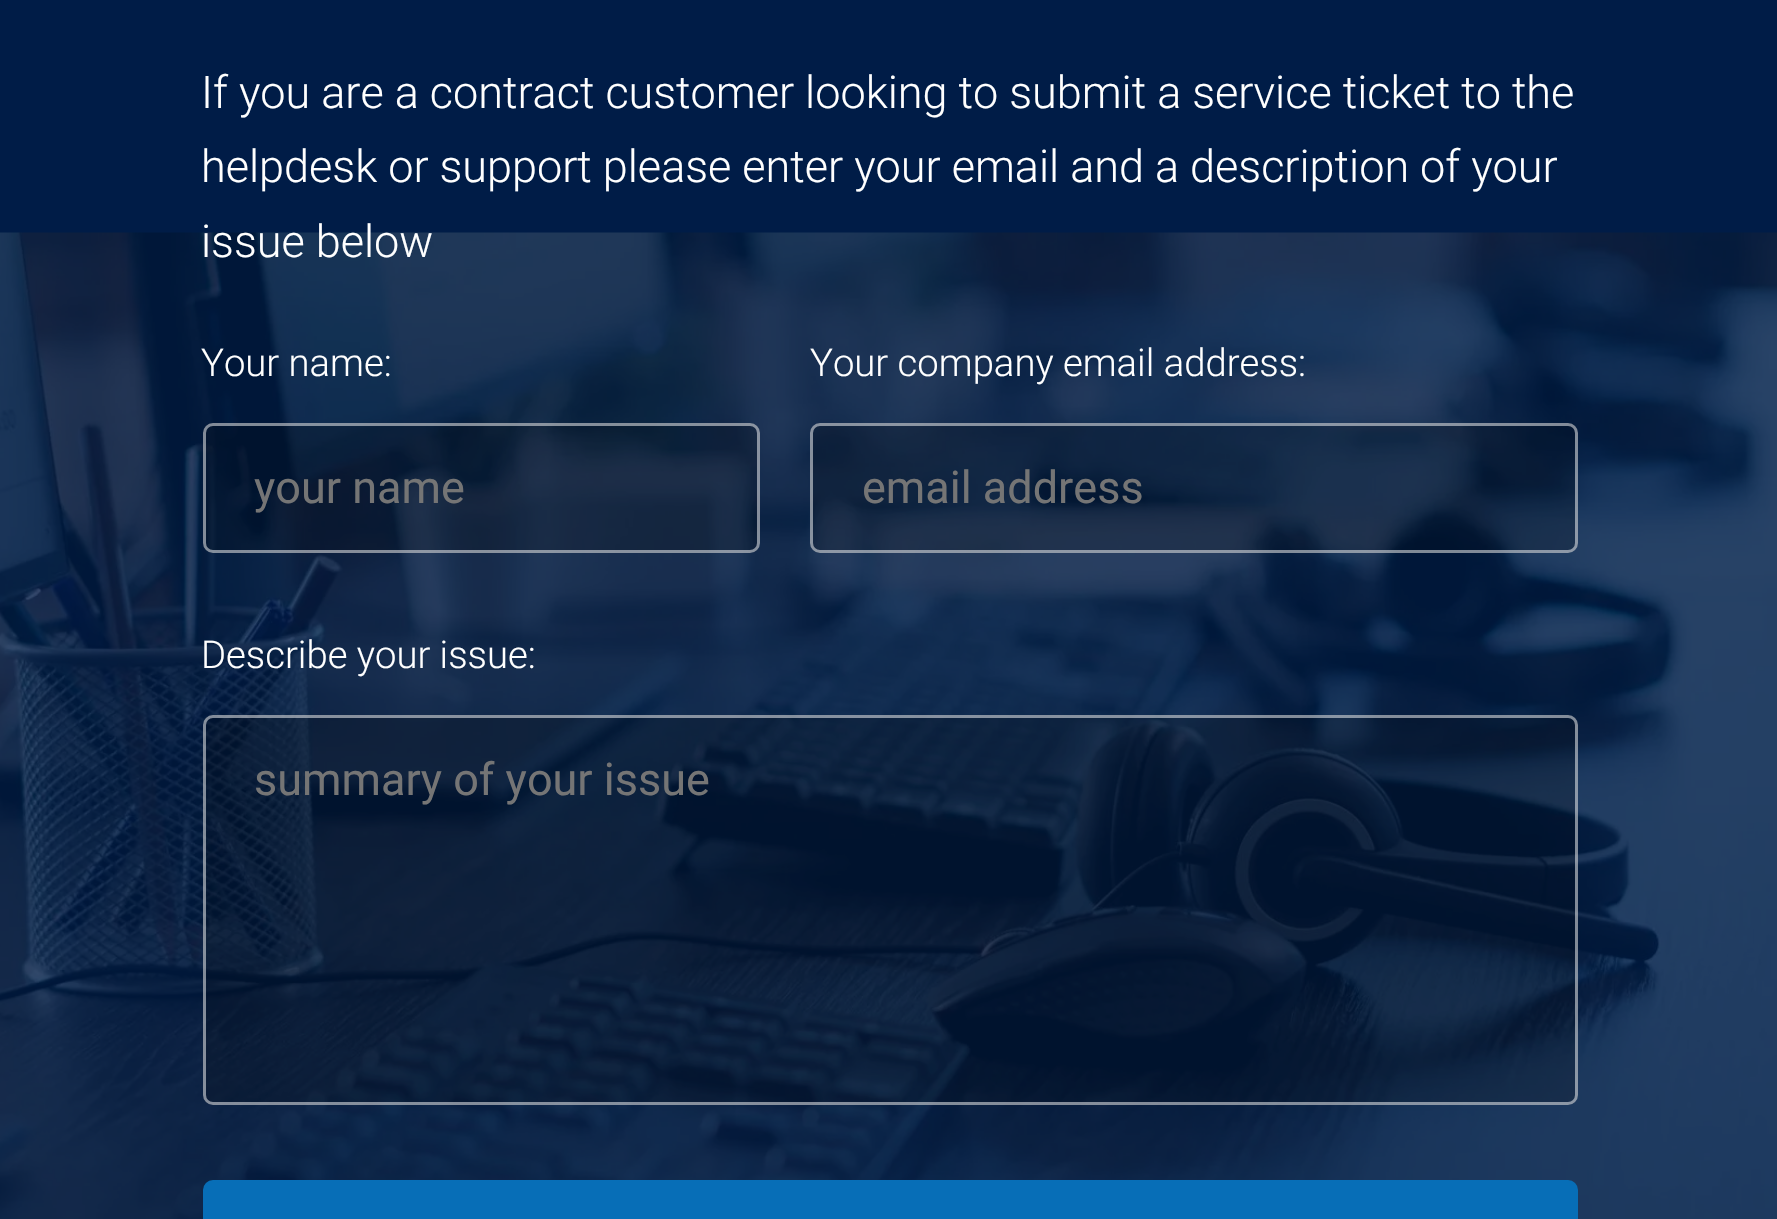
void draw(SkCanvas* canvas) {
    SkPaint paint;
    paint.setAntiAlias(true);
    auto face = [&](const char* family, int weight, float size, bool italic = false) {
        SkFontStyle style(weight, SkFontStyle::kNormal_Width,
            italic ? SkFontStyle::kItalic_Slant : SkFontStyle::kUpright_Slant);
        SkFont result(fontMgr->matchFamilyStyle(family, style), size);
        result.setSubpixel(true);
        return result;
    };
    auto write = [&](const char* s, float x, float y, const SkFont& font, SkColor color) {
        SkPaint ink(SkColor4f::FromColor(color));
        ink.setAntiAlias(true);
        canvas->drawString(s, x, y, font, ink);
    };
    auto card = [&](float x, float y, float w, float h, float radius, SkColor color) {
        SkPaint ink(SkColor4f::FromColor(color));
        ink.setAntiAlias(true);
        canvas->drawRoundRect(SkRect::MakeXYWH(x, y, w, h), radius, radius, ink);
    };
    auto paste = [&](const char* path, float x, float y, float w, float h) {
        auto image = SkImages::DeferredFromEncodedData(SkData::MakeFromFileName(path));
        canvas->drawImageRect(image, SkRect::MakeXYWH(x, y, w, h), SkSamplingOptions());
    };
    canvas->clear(SkColorSetRGB(0, 28, 71));
    auto kFont1 = face("Roboto", 300, 45);
    write("If you are a contract customer looking to submit a service ticket to the", 201, 108, kFont1, SK_ColorWHITE);
    write("helpdesk or support please enter your email and a description of your", 201, 182, kFont1, SK_ColorWHITE);
    paste("pic1.png", 0, 232, 1777, 987);
    write("issue below", 201, 257, kFont1, SK_ColorWHITE);
    auto kFont2 = face("Roboto", 300, 38.25f);
    write("Your name:", 201, 376, kFont2, SK_ColorWHITE);
    card(203, 423, 557, 130, 10, SkColorSetARGB(51, 0, 0, 0));
    paint.setStyle(SkPaint::kStroke_Style);
    paint.setStrokeWidth(3);
    paint.setColor(SkColorSetARGB(128, 255, 255, 255));
    canvas->drawRoundRect(SkRect::MakeXYWH(204.5f, 424.5f, 554, 127), 8.5f, 8.5f, paint);
    auto kFont3 = face("Roboto", 400, 45);
    write("your name", 254, 503, kFont3, SkColorSetRGB(117, 117, 117));
    write("Your company email address:", 810, 376, kFont2, SK_ColorWHITE);
    card(810, 423, 768, 130, 10, SkColorSetARGB(51, 0, 0, 0));
    canvas->drawRoundRect(SkRect::MakeXYWH(811.5f, 424.5f, 765, 127), 8.5f, 8.5f, paint);
    write("email address", 862, 503, kFont3, SkColorSetRGB(117, 117, 117));
    write("Describe your issue:", 201, 668, kFont2, SK_ColorWHITE);
    card(203, 715, 1375, 390, 10, SkColorSetARGB(51, 0, 0, 0));
    canvas->drawRoundRect(SkRect::MakeXYWH(204.5f, 716.5f, 1372, 387), 8.5f, 8.5f, paint);
    write("summary of your issue", 254, 795, kFont3, SkColorSetRGB(117, 117, 117));
    card(203, 1180, 1375, 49, 10, SkColorSetRGB(7, 110, 183));
}
